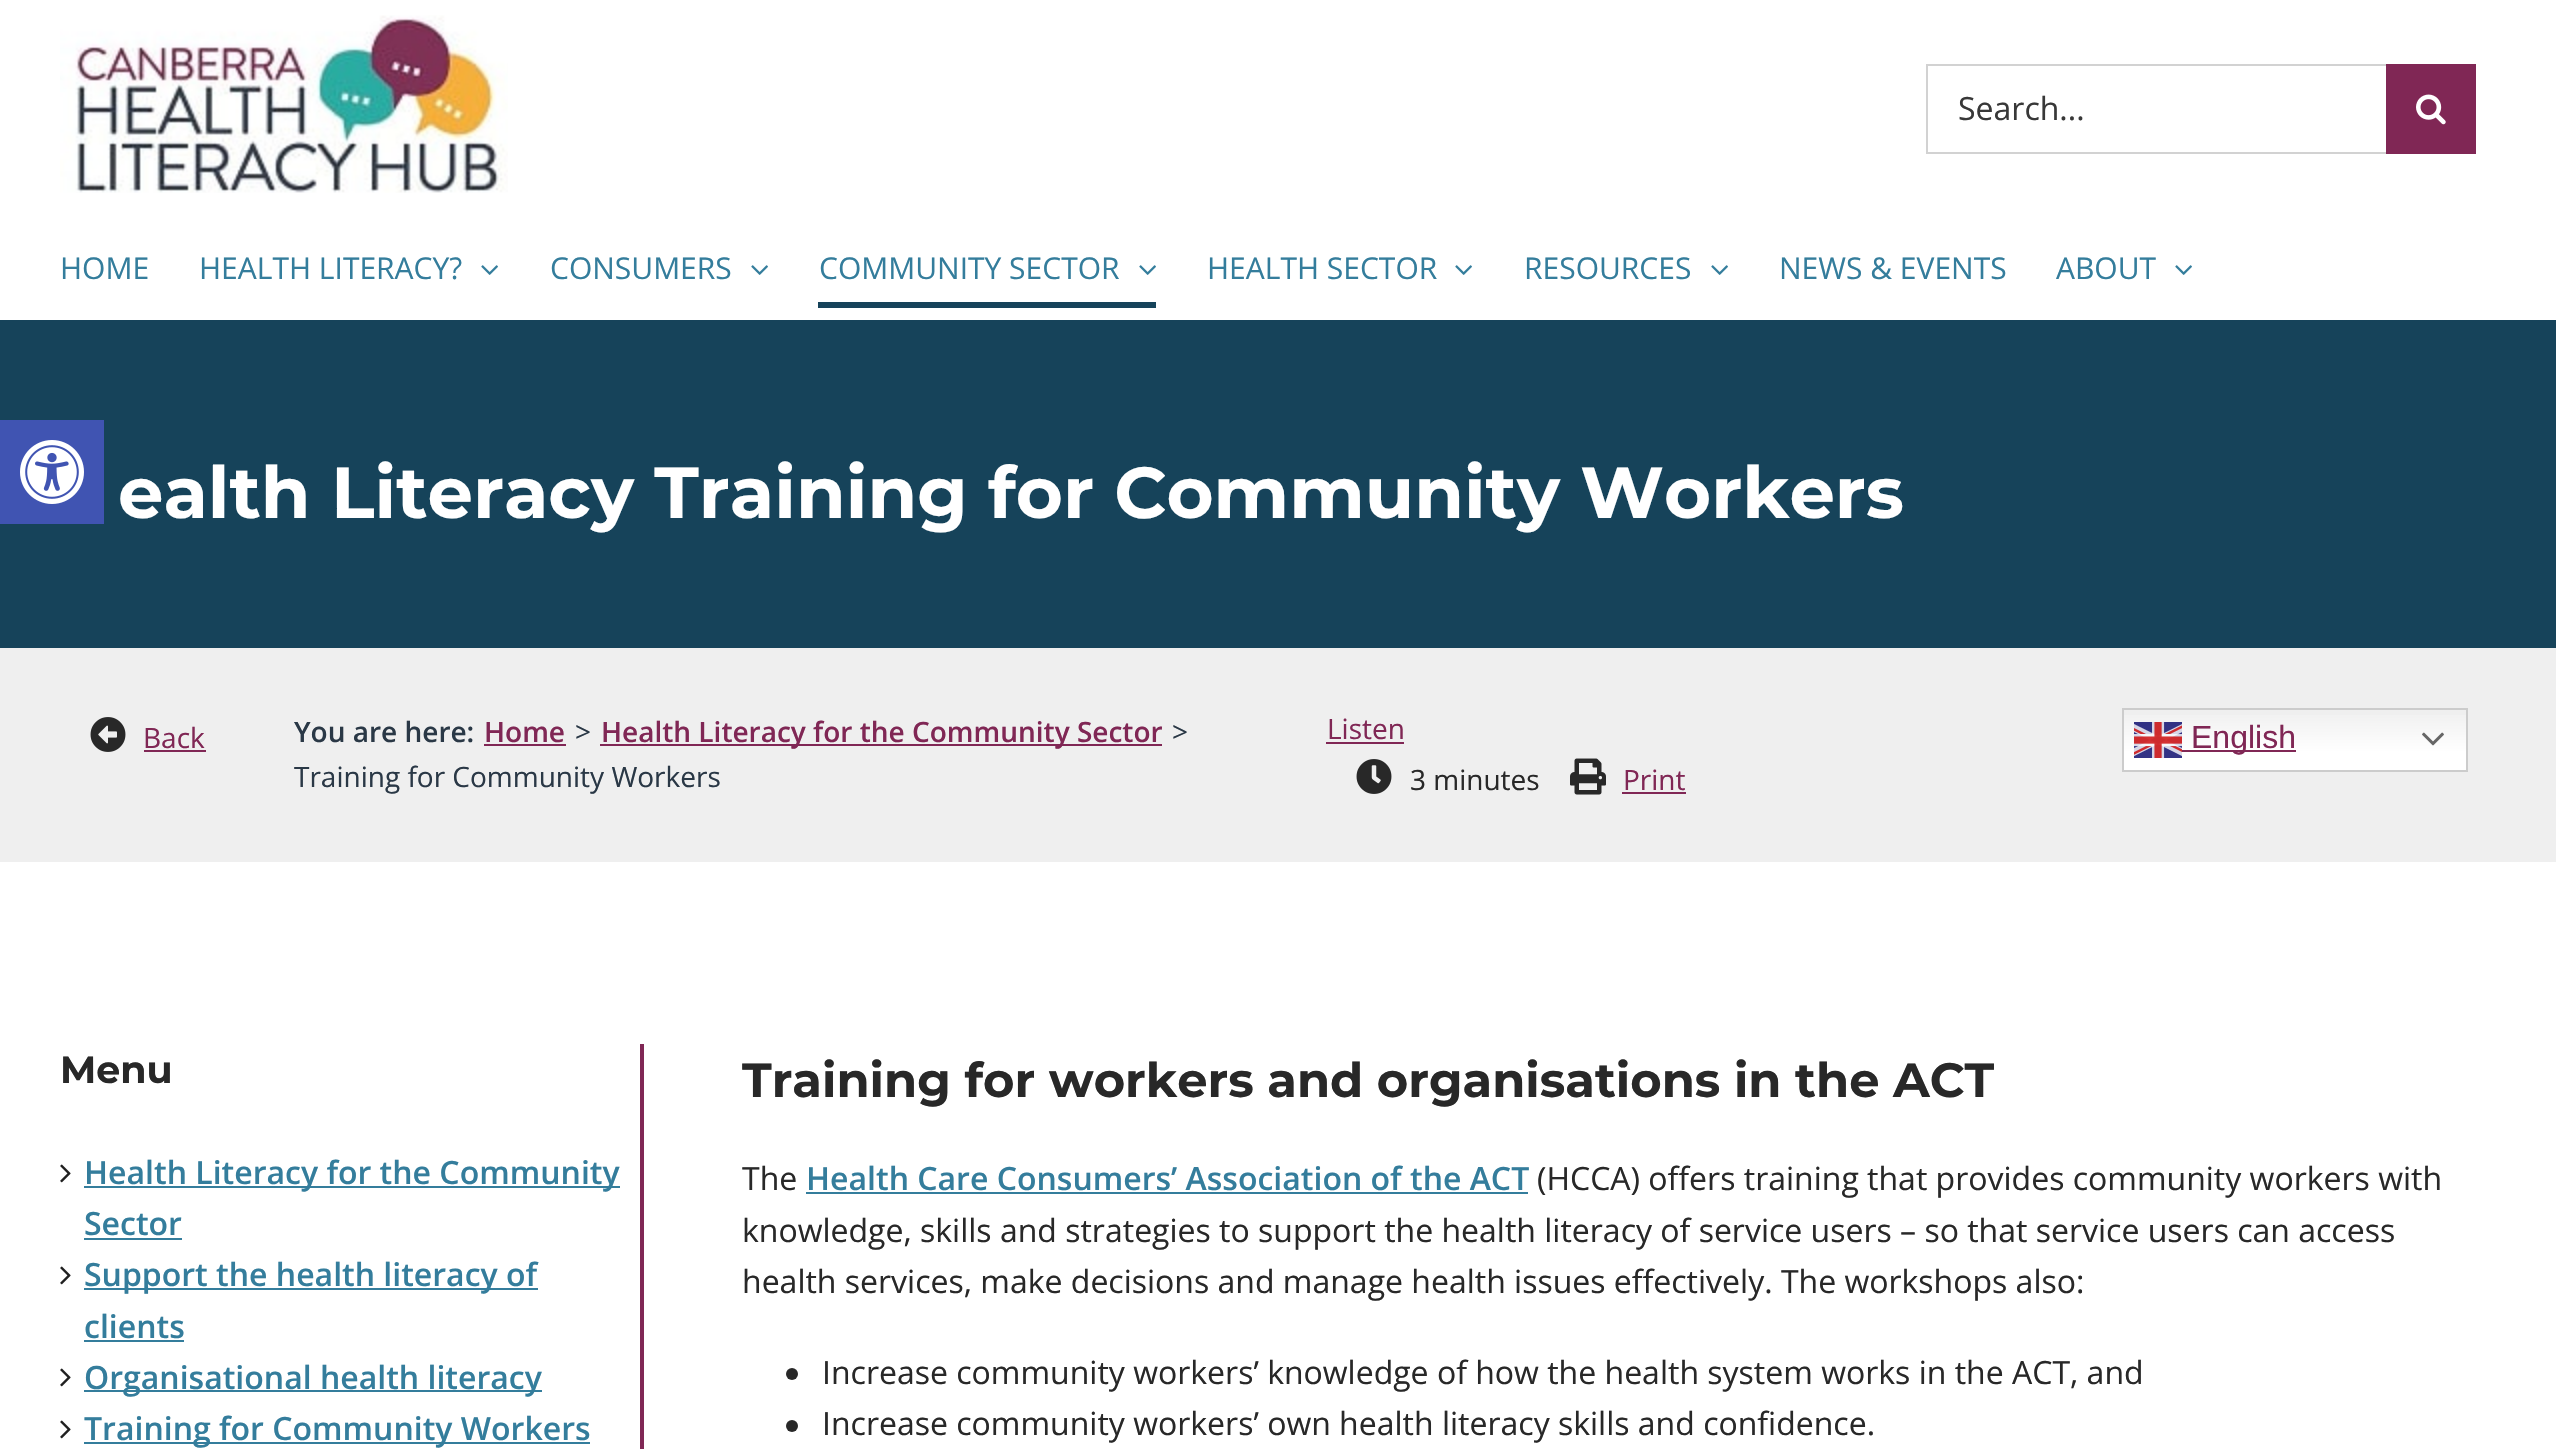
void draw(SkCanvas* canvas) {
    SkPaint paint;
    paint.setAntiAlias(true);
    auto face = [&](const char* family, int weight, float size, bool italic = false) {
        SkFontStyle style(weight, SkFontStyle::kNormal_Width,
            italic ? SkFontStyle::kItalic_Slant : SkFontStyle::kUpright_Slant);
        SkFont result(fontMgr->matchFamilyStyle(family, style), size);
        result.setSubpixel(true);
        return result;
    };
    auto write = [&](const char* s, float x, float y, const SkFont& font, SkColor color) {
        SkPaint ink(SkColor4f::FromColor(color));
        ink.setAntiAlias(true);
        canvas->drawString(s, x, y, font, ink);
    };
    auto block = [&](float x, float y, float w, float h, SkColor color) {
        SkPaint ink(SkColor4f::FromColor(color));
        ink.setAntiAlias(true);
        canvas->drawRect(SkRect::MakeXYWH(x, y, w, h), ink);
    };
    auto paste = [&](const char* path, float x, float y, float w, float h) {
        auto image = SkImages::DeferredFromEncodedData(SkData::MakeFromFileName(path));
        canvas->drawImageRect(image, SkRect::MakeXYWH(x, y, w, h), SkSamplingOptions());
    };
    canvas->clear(SK_ColorWHITE);
    block(0, 320, 2556, 328, SkColorSetRGB(22, 67, 90));
    block(0, 420, 104, 104, SkColorSetRGB(64, 84, 178));
    paste("pic1.png", 20, 440, 64, 64);
    paste("pic2.png", 60, 15, 448, 178);
    block(1926, 64, 460, 2, SkColorSetRGB(210, 210, 210));
    block(1926, 152, 460, 2, SkColorSetRGB(210, 210, 210));
    block(1926, 64, 2, 90, SkColorSetRGB(210, 210, 210));
    auto kFont1 = face("Open Sans", 400, 32);
    write("Search...", 1958, 120, kFont1, SkColorSetRGB(56, 56, 56));
    block(2386, 64, 90, 90, SkColorSetRGB(128, 39, 85));
    paste("pic3.png", 2416, 94, 30, 31);
    auto kFont2 = face("Open Sans", 400, 30);
    write("HOME", 60, 279, kFont2, SkColorSetRGB(52, 125, 156));
    write("HEALTH LITERACY?", 199, 279, kFont2, SkColorSetRGB(52, 125, 156));
    paste("pic4.png", 481, 265, 17, 10);
    write("CONSUMERS", 550, 279, kFont2, SkColorSetRGB(52, 125, 156));
    paste("pic4.png", 751, 265, 17, 10);
    write("COMMUNITY SECTOR", 819, 279, kFont2, SkColorSetRGB(52, 125, 156));
    paste("pic4.png", 1139, 265, 17, 10);
    block(818, 302, 338, 6, SkColorSetRGB(22, 67, 90));
    write("HEALTH SECTOR", 1207, 279, kFont2, SkColorSetRGB(52, 125, 156));
    paste("pic4.png", 1455, 265, 17, 10);
    write("RESOURCES", 1524, 279, kFont2, SkColorSetRGB(52, 125, 156));
    paste("pic4.png", 1711, 265, 17, 10);
    write("NEWS & EVENTS", 1779, 279, kFont2, SkColorSetRGB(52, 125, 156));
    write("ABOUT", 2056, 279, kFont2, SkColorSetRGB(52, 125, 156));
    paste("pic4.png", 2175, 265, 17, 10);
    auto kFont3 = face("Montserrat", 100, 72);
    write("ealth Literacy Training for Community Workers", 118, 518, kFont3, SK_ColorWHITE);
    block(0, 648, 2556, 214, SkColorSetRGB(239, 239, 239));
    paste("pic5.png", 90, 717, 36, 35);
    auto kFont4 = face("Open Sans", 400, 28);
    write("Back", 143, 748, kFont4, SkColorSetRGB(128, 39, 85));
    block(144, 750, 62, 2, SkColorSetRGB(128, 39, 85));
    auto kFont5 = face("Open Sans", 600, 28);
    write("You are here:", 294, 742, kFont5, SkColorSetRGB(42, 56, 70));
    write("Home", 484, 742, kFont5, SkColorSetRGB(128, 39, 85));
    block(484, 744, 82, 2, SkColorSetRGB(128, 39, 85));
    write(">", 575, 742, kFont4, SkColorSetRGB(42, 56, 70));
    block(600, 744, 562, 2, SkColorSetRGB(128, 39, 85));
    write("Health Literacy for the Community Sector", 601, 742, kFont5, SkColorSetRGB(128, 39, 85));
    write(">", 1172, 742, kFont4, SkColorSetRGB(42, 56, 70));
    write("Training for Community Workers", 294, 787, kFont4, SkColorSetRGB(42, 56, 70));
    write("Listen", 1327, 739, kFont4, SkColorSetRGB(128, 39, 85));
    block(1326, 742, 78, 2, SkColorSetRGB(128, 39, 85));
    paste("pic6.png", 1356, 759, 36, 35);
    write("3 minutes", 1410, 790, kFont4, SkColorSetRGB(40, 40, 40));
    paste("pic7.png", 1570, 758, 36, 37);
    write("Print", 1623, 790, kFont4, SkColorSetRGB(128, 39, 85));
    block(1622, 792, 64, 2, SkColorSetRGB(128, 39, 85));
    {
        const SkColor colors[] = {SkColorSetRGB(239, 239, 239), SK_ColorWHITE};
        const float stops[] = {0, 0.7f};
        const SkPoint ends[] = {{2295, 708}, {2295, 772}};
        paint.setShader(SkGradientShader::MakeLinear(ends, colors, stops, 2, SkTileMode::kClamp));
        paint.setAlpha(255);
    }
    canvas->drawRect(SkRect::MakeXYWH(2124, 715, 342, 55), paint);
    paint.setStyle(SkPaint::kStroke_Style);
    paint.setStrokeWidth(2);
    paint.setShader(nullptr);
    paint.setColor(SkColorSetRGB(204, 204, 204));
    canvas->drawRect(SkRect::MakeXYWH(2123, 709, 344, 62), paint);
    paste("pic8.png", 2134, 722, 48, 36);
    block(2182, 750, 114, 2, SkColorSetRGB(128, 39, 85));
    auto kFont6 = face("Liberation Sans", 400, 32);
    write("English", 2191, 748, kFont6, SkColorSetRGB(128, 39, 85));
    paste("pic9.png", 2422, 732, 22, 14);
    block(640, 1044, 4, 405, SkColorSetRGB(128, 39, 85));
    auto kFont7 = face("Montserrat", 100, 38);
    write("Menu", 60, 1083, kFont7, SkColorSetRGB(40, 40, 40));
    paste("pic10.png", 60, 1164, 11, 19);
    block(84, 1186, 536, 2, SkColorSetRGB(52, 125, 156));
    auto kFont8 = face("Open Sans", 600, 32);
    write("Health Literacy for the Community", 84, 1184, kFont8, SkColorSetRGB(52, 125, 156));
    write("Sector", 84, 1235, kFont8, SkColorSetRGB(52, 125, 156));
    block(84, 1238, 98, 2, SkColorSetRGB(52, 125, 156));
    paste("pic10.png", 60, 1266, 11, 19);
    block(84, 1288, 454, 2, SkColorSetRGB(52, 125, 156));
    write("Support the health literacy of", 84, 1286, kFont8, SkColorSetRGB(52, 125, 156));
    write("clients", 84, 1338, kFont8, SkColorSetRGB(52, 125, 156));
    block(84, 1340, 100, 2, SkColorSetRGB(52, 125, 156));
    paste("pic10.png", 60, 1368, 11, 19);
    block(84, 1390, 458, 2, SkColorSetRGB(52, 125, 156));
    write("Organisational health literacy", 84, 1389, kFont8, SkColorSetRGB(52, 125, 156));
    paste("pic10.png", 60, 1420, 11, 19);
    block(84, 1442, 506, 2, SkColorSetRGB(52, 125, 156));
    write("Training for Community Workers", 84, 1440, kFont8, SkColorSetRGB(52, 125, 156));
    auto kFont9 = face("Montserrat", 100, 48);
    write("Training for workers and organisations in the ACT", 742, 1097, kFont9, SkColorSetRGB(40, 40, 40));
    write("The", 742, 1190, kFont1, SkColorSetRGB(40, 40, 40));
    write("Health Care Consumers’ Association of the ACT", 806, 1190, kFont8, SkColorSetRGB(52, 125, 156));
    block(806, 1192, 722, 2, SkColorSetRGB(52, 125, 156));
    write("(HCCA) offers training that provides community workers with", 1537, 1190, kFont1, SkColorSetRGB(40, 40, 40));
    write("knowledge, skills and strategies to support the health literacy of service users – so that service users can access", 742, 1242, kFont1, SkColorSetRGB(40, 40, 40));
    write("health services, make decisions and manage health issues effectively. The workshops also:", 742, 1293, kFont1, SkColorSetRGB(40, 40, 40));
    paint.setStyle(SkPaint::kFill_Style);
    paint.setColor(SkColorSetRGB(40, 40, 40));
    canvas->drawCircle(792, 1374, 6, paint);
    write("Increase community workers’ knowledge of how the health system works in the ACT, and", 822, 1384, kFont1, SkColorSetRGB(40, 40, 40));
    canvas->drawCircle(792, 1426, 6, paint);
    write("Increase community workers’ own health literacy skills and confidence.", 822, 1435, kFont1, SkColorSetRGB(40, 40, 40));
}
